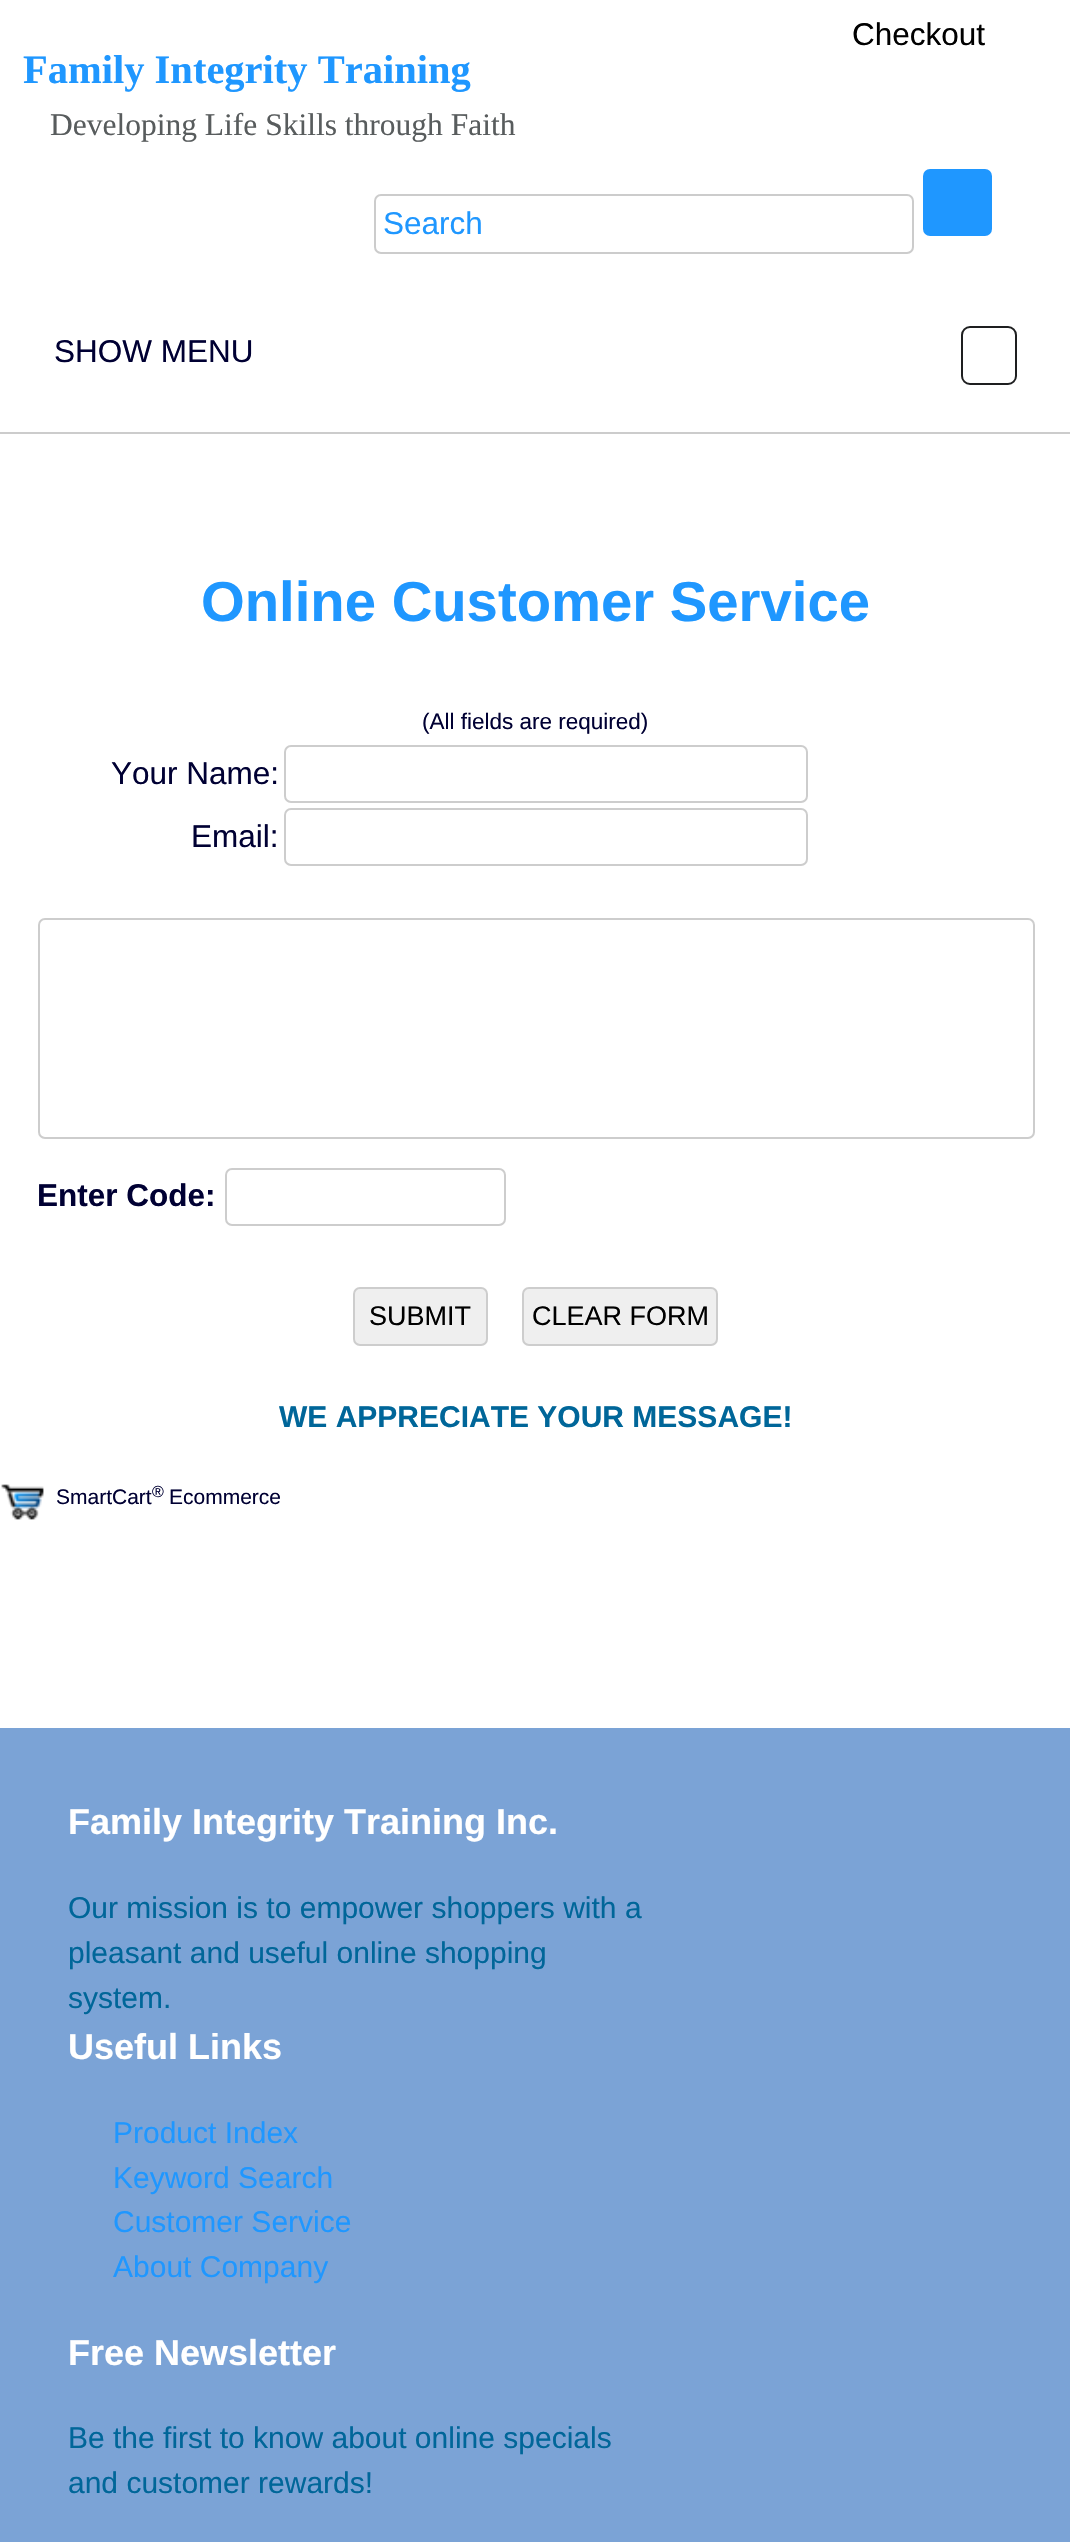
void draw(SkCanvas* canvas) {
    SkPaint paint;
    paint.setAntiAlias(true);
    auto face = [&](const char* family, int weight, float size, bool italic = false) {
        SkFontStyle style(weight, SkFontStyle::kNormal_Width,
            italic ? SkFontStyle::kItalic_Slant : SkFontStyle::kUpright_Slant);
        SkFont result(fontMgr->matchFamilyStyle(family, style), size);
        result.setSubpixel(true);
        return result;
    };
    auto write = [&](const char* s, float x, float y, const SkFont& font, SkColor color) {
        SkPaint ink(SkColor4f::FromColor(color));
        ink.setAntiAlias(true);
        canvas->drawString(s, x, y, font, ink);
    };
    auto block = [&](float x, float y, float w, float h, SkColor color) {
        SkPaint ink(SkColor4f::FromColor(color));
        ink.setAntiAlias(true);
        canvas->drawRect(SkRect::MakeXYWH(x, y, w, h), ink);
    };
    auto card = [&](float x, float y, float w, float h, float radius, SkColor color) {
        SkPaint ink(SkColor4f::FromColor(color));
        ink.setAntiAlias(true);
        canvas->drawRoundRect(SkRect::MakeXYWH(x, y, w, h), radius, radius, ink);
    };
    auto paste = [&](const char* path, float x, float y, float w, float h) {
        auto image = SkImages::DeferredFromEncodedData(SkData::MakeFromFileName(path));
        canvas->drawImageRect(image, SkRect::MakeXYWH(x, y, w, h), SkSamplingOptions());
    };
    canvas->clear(SK_ColorWHITE);
    auto kFont1 = face("Liberation Sans", 400, 31.5f);
    write("Checkout", 852, 45, kFont1, SK_ColorBLACK);
    auto kFont2 = face("Liberation Serif", 700, 40.5f);
    write("Family Integrity Training", 23, 83, kFont2, SkColorSetRGB(31, 151, 255));
    auto kFont3 = face("Liberation Serif", 400, 31.5f);
    write("Developing Life Skills through Faith", 50, 135, kFont3, SkColorSetRGB(88, 92, 93));
    paint.setStyle(SkPaint::kStroke_Style);
    paint.setStrokeWidth(2);
    paint.setColor(SkColorSetRGB(204, 204, 204));
    canvas->drawRoundRect(SkRect::MakeXYWH(375, 195, 538, 58), 6, 6, paint);
    write("Search", 383, 234, kFont1, SkColorSetRGB(31, 151, 255));
    card(923, 169, 69, 67, 7, SkColorSetRGB(31, 151, 255));
    block(0, 432, 1070, 2, SkColorSetRGB(204, 204, 204));
    write("SHOW MENU", 54, 362, kFont1, SkColorSetRGB(0, 0, 51));
    paint.setColor(SkColorSetRGB(30, 31, 32));
    canvas->drawRoundRect(SkRect::MakeXYWH(962, 327, 54, 57), 8, 8, paint);
    auto kFont4 = face("Liberation Sans", 700, 56.25f);
    write("Online Customer Service", 201, 621, kFont4, SkColorSetRGB(31, 151, 255));
    auto kFont5 = face("Liberation Sans", 400, 22.5f);
    write("(All fields are required)", 422, 729, kFont5, SkColorSetRGB(0, 0, 51));
    write("Your Name:", 111, 784, kFont1, SkColorSetRGB(0, 0, 51));
    paint.setColor(SkColorSetRGB(205, 205, 205));
    canvas->drawRoundRect(SkRect::MakeXYWH(285, 746, 522, 56), 6, 6, paint);
    write("Email:", 191, 847, kFont1, SkColorSetRGB(0, 0, 51));
    canvas->drawRoundRect(SkRect::MakeXYWH(285, 809, 522, 56), 6, 6, paint);
    canvas->drawRoundRect(SkRect::MakeXYWH(39, 919, 995, 219), 6, 6, paint);
    auto kFont6 = face("Liberation Sans", 700, 31.5f);
    write("Enter Code:", 37, 1206, kFont6, SkColorSetRGB(0, 0, 51));
    canvas->drawRoundRect(SkRect::MakeXYWH(226, 1169, 279, 56), 6, 6, paint);
    paint.setStyle(SkPaint::kFill_Style);
    paint.setColor(SkColorSetRGB(239, 239, 239));
    canvas->drawRoundRect(SkRect::MakeXYWH(354, 1288, 133, 57), 6, 6, paint);
    paint.setStyle(SkPaint::kStroke_Style);
    paint.setColor(SkColorSetRGB(205, 205, 205));
    canvas->drawRoundRect(SkRect::MakeXYWH(354, 1288, 133, 57), 6, 6, paint);
    auto kFont7 = face("Liberation Sans", 400, 27);
    write("SUBMIT", 369, 1325, kFont7, SK_ColorBLACK);
    paint.setStyle(SkPaint::kFill_Style);
    paint.setColor(SkColorSetRGB(239, 239, 239));
    canvas->drawRoundRect(SkRect::MakeXYWH(523, 1288, 194, 57), 6, 6, paint);
    paint.setStyle(SkPaint::kStroke_Style);
    paint.setColor(SkColorSetRGB(205, 205, 205));
    canvas->drawRoundRect(SkRect::MakeXYWH(523, 1288, 194, 57), 6, 6, paint);
    write("CLEAR FORM", 532, 1325, kFont7, SK_ColorBLACK);
    auto kFont8 = face("Liberation Sans", 700, 30);
    write("WE APPRECIATE YOUR MESSAGE!", 279, 1427, kFont8, SkColorSetRGB(0, 102, 153));
    paste("pic1.png", 1, 1484, 43, 36);
    auto kFont9 = face("Liberation Sans", 400, 21);
    write("SmartCart", 56, 1504, kFont9, SkColorSetRGB(0, 0, 51));
    auto kFont10 = face("Liberation Sans", 400, 16);
    write("®", 152, 1497, kFont10, SkColorSetRGB(0, 0, 51));
    write("Ecommerce", 169, 1504, kFont9, SkColorSetRGB(0, 0, 51));
    block(0, 1728, 1070, 814, SkColorSetRGB(123, 163, 214));
    auto kFont11 = face("Liberation Sans", 700, 36);
    write("Family Integrity Training Inc.", 68, 1834, kFont11, SK_ColorWHITE);
    auto kFont12 = face("Liberation Sans", 400, 30);
    write("Our mission is to empower shoppers with a", 68, 1918, kFont12, SkColorSetRGB(0, 102, 153));
    write("pleasant and useful online shopping", 68, 1963, kFont12, SkColorSetRGB(0, 102, 153));
    write("system.", 68, 2008, kFont12, SkColorSetRGB(0, 102, 153));
    write("Useful Links", 68, 2059, kFont11, SK_ColorWHITE);
    write("Product Index", 113, 2143, kFont12, SkColorSetRGB(31, 151, 255));
    write("Keyword Search", 113, 2188, kFont12, SkColorSetRGB(31, 151, 255));
    write("Customer Service", 113, 2232, kFont12, SkColorSetRGB(31, 151, 255));
    write("About Company", 113, 2277, kFont12, SkColorSetRGB(31, 151, 255));
    write("Free Newsletter", 68, 2365, kFont11, SK_ColorWHITE);
    write("Be the first to know about online specials", 68, 2448, kFont12, SkColorSetRGB(0, 102, 153));
    write("and customer rewards!", 68, 2493, kFont12, SkColorSetRGB(0, 102, 153));
}
